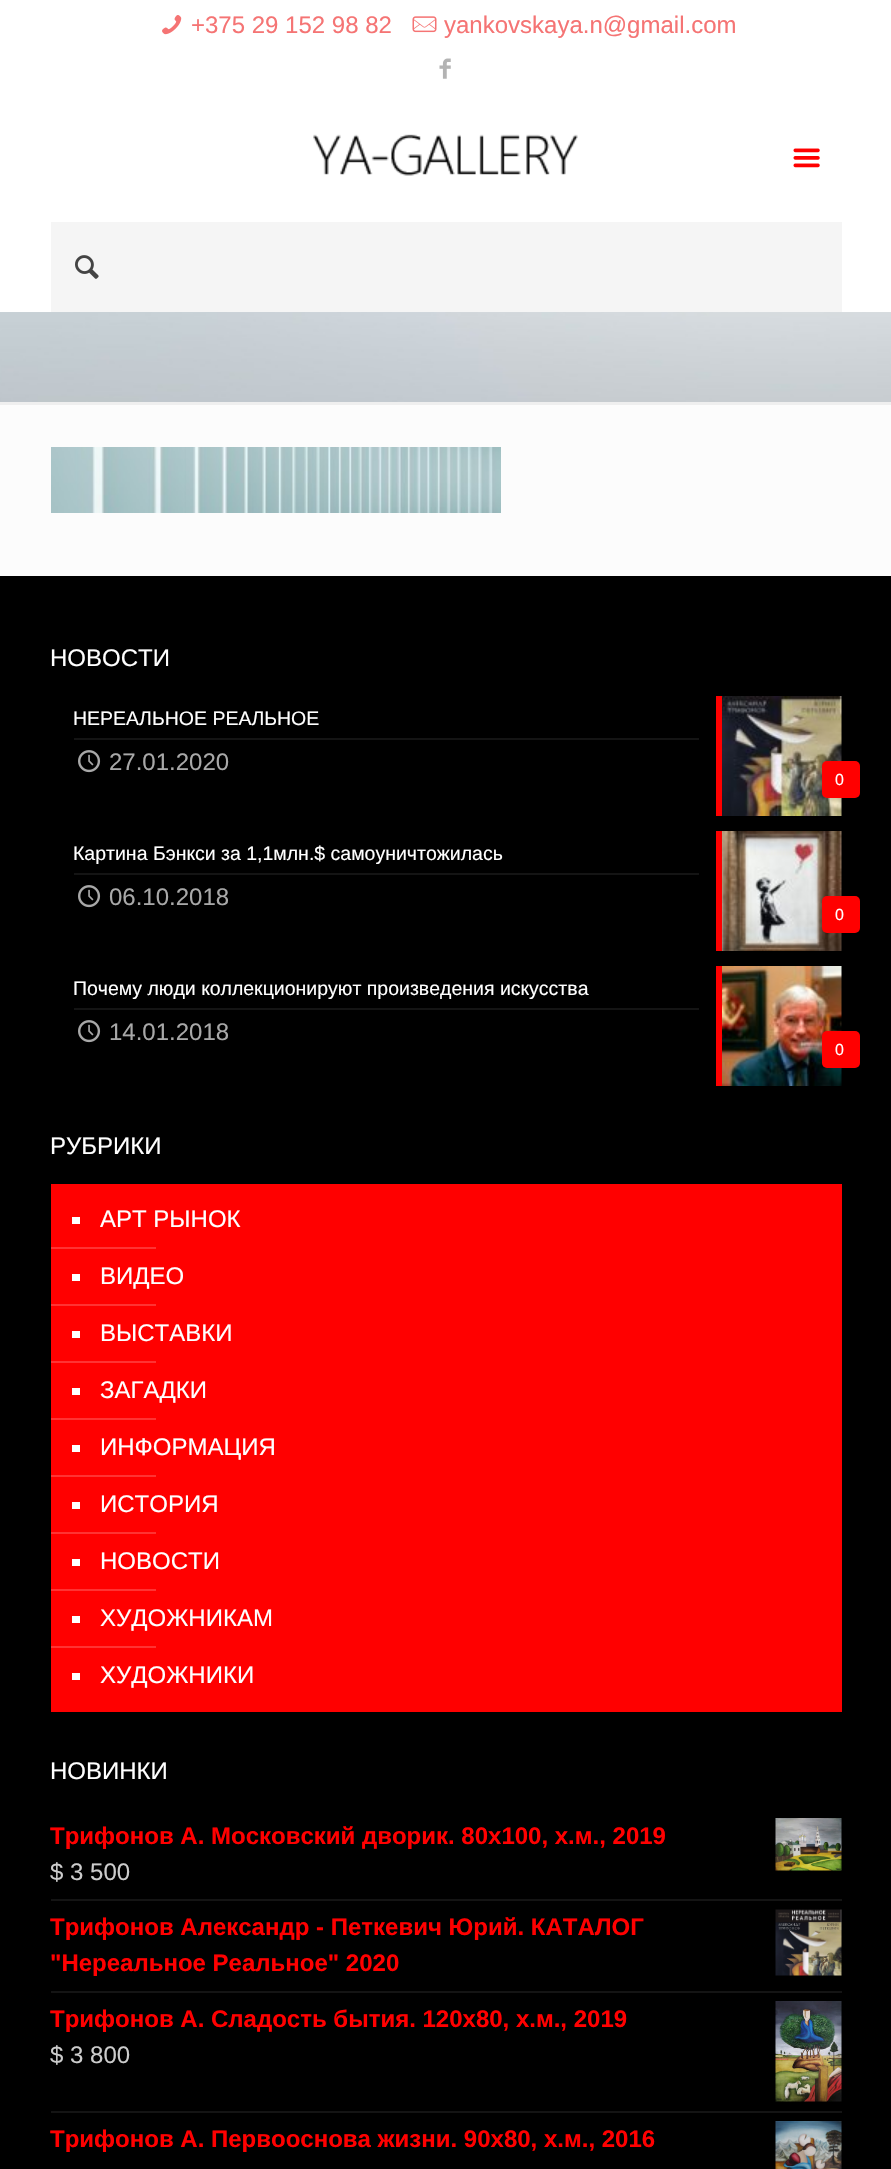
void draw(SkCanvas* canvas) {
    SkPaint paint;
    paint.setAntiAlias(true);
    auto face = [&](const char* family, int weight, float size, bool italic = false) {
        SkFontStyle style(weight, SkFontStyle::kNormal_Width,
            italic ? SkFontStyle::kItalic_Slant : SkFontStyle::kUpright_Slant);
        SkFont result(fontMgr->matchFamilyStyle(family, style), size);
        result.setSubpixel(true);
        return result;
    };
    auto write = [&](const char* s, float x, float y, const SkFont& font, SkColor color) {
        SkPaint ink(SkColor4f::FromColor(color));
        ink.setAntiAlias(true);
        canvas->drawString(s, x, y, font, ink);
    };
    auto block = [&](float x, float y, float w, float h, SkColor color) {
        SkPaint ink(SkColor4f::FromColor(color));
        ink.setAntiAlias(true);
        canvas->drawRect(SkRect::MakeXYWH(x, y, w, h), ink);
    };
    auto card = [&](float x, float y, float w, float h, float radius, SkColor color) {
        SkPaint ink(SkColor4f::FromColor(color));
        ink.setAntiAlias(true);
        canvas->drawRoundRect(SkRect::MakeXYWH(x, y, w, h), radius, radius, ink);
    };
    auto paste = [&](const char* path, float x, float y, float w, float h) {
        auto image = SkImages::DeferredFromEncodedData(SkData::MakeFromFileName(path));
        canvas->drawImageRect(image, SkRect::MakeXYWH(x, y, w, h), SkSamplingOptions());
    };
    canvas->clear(SkColorSetRGB(252, 252, 252));
    paste("pic1.png", 0, 312, 891, 90);
    block(0, 0, 891, 312, SK_ColorWHITE);
    paste("pic2.png", 162, 15, 20, 20);
    auto kFont1 = face("Liberation Sans", 400, 24);
    write("+375 29 152 98 82", 191, 33, kFont1, SkColorSetRGB(245, 116, 116));
    paste("pic3.png", 412, 16, 25, 17);
    write("yankovskaya.n@gmail.com", 444, 33, kFont1, SkColorSetRGB(245, 116, 116));
    paste("pic4.png", 439, 58, 12, 21);
    paste("pic5.png", 313, 134, 265, 42);
    paste("pic6.png", 793, 148, 27, 20);
    block(51, 222, 791, 90, SkColorSetRGB(245, 245, 245));
    paste("pic7.png", 75, 255, 24, 24);
    block(0, 402, 891, 3, SkColorSetRGB(239, 239, 239));
    paste("pic8.png", 51, 447, 450, 66);
    block(0, 576, 891, 1593, SK_ColorBLACK);
    write("НОВОСТИ", 50, 666, kFont1, SK_ColorWHITE);
    block(74, 738, 625, 2, SkColorSetRGB(20, 20, 20));
    auto kFont2 = face("Liberation Sans", 400, 19.5f);
    write("НЕРЕАЛЬНОЕ РЕАЛЬНОЕ", 73, 725, kFont2, SK_ColorWHITE);
    block(716, 696, 6, 120, SkColorSetRGB(255, 0, 0));
    paste("pic9.png", 78, 750, 23, 23);
    write("27.01.2020", 109, 770, kFont1, SkColorSetRGB(168, 168, 168));
    paste("pic10.png", 722, 696, 120, 120);
    card(822, 761, 38, 37, 5, SkColorSetRGB(255, 0, 0));
    auto kFont3 = face("Liberation Sans", 400, 16);
    write("0", 835, 785, kFont3, SK_ColorWHITE);
    block(74, 873, 625, 2, SkColorSetRGB(20, 20, 20));
    write("Картина Бэнкси за 1,1млн.$ самоуничтожилась", 73, 860, kFont2, SK_ColorWHITE);
    block(716, 831, 6, 120, SkColorSetRGB(255, 0, 0));
    paste("pic9.png", 78, 885, 23, 23);
    write("06.10.2018", 109, 905, kFont1, SkColorSetRGB(168, 168, 168));
    paste("pic11.png", 722, 831, 120, 120);
    card(822, 896, 38, 37, 5, SkColorSetRGB(255, 0, 0));
    write("0", 835, 920, kFont3, SK_ColorWHITE);
    block(74, 1008, 625, 2, SkColorSetRGB(20, 20, 20));
    write("Почему люди коллекционируют произведения искусства", 73, 995, kFont2, SK_ColorWHITE);
    block(716, 966, 6, 120, SkColorSetRGB(255, 0, 0));
    paste("pic9.png", 78, 1020, 23, 23);
    write("14.01.2018", 109, 1040, kFont1, SkColorSetRGB(168, 168, 168));
    paste("pic12.png", 722, 966, 120, 120);
    card(822, 1031, 38, 37, 5, SkColorSetRGB(255, 0, 0));
    write("0", 835, 1055, kFont3, SK_ColorWHITE);
    write("РУБРИКИ", 50, 1154, kFont1, SK_ColorWHITE);
    block(51, 1184, 791, 528, SkColorSetRGB(255, 0, 0));
    block(72, 1217, 8, 7, SK_ColorWHITE);
    write("АРТ РЫНОК", 100, 1227, kFont1, SK_ColorWHITE);
    block(51, 1247, 105, 2, SkColorSetRGB(255, 51, 51));
    block(72, 1274, 8, 7, SK_ColorWHITE);
    write("ВИДЕО", 100, 1284, kFont1, SK_ColorWHITE);
    block(51, 1304, 105, 2, SkColorSetRGB(255, 51, 51));
    block(72, 1331, 8, 7, SK_ColorWHITE);
    write("ВЫСТАВКИ", 100, 1341, kFont1, SK_ColorWHITE);
    block(51, 1361, 105, 2, SkColorSetRGB(255, 51, 51));
    block(72, 1388, 8, 7, SK_ColorWHITE);
    write("ЗАГАДКИ", 100, 1398, kFont1, SK_ColorWHITE);
    block(51, 1418, 105, 2, SkColorSetRGB(255, 51, 51));
    block(72, 1445, 8, 7, SK_ColorWHITE);
    write("ИНФОРМАЦИЯ", 100, 1455, kFont1, SK_ColorWHITE);
    block(51, 1475, 105, 2, SkColorSetRGB(255, 51, 51));
    block(72, 1502, 8, 7, SK_ColorWHITE);
    write("ИСТОРИЯ", 100, 1512, kFont1, SK_ColorWHITE);
    block(51, 1532, 105, 2, SkColorSetRGB(255, 51, 51));
    block(72, 1559, 8, 7, SK_ColorWHITE);
    write("НОВОСТИ", 100, 1569, kFont1, SK_ColorWHITE);
    block(51, 1589, 105, 2, SkColorSetRGB(255, 51, 51));
    block(72, 1616, 8, 7, SK_ColorWHITE);
    write("ХУДОЖНИКАМ", 100, 1626, kFont1, SK_ColorWHITE);
    block(51, 1646, 105, 2, SkColorSetRGB(255, 51, 51));
    block(72, 1673, 8, 7, SK_ColorWHITE);
    write("ХУДОЖНИКИ", 100, 1683, kFont1, SK_ColorWHITE);
    write("НОВИНКИ", 50, 1779, kFont1, SK_ColorWHITE);
    block(51, 1899, 791, 2, SkColorSetRGB(20, 20, 20));
    auto kFont4 = face("Liberation Sans", 700, 24);
    write("Трифонов А. Московский дворик. 80х100, х.м., 2019", 50, 1844, kFont4, SkColorSetRGB(255, 0, 0));
    paste("pic13.png", 775, 1818, 67, 53);
    write("$ 3 500", 50, 1880, kFont1, SkColorSetRGB(204, 204, 204));
    block(51, 1991, 791, 2, SkColorSetRGB(20, 20, 20));
    write("Трифонов Александр - Петкевич Юрий. КАТАЛОГ", 50, 1935, kFont4, SkColorSetRGB(255, 0, 0));
    paste("pic14.png", 775, 1909, 67, 67);
    write("\"Нереальное Реальное\" 2020", 50, 1971, kFont4, SkColorSetRGB(255, 0, 0));
    block(51, 2111, 791, 2, SkColorSetRGB(20, 20, 20));
    write("Трифонов А. Сладость бытия. 120х80, х.м., 2019", 50, 2027, kFont4, SkColorSetRGB(255, 0, 0));
    paste("pic15.png", 775, 2001, 67, 101);
    write("$ 3 800", 50, 2063, kFont1, SkColorSetRGB(204, 204, 204));
    write("Трифонов А. Первооснова жизни. 90х80, х.м., 2016", 50, 2147, kFont4, SkColorSetRGB(255, 0, 0));
    paste("pic16.png", 775, 2121, 67, 48);
}
